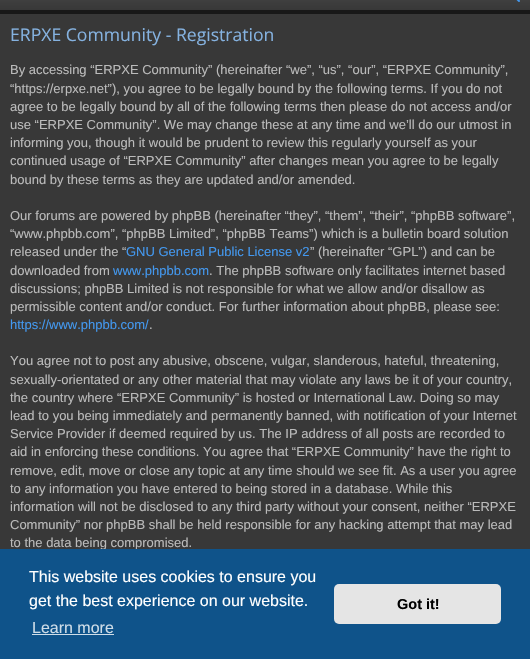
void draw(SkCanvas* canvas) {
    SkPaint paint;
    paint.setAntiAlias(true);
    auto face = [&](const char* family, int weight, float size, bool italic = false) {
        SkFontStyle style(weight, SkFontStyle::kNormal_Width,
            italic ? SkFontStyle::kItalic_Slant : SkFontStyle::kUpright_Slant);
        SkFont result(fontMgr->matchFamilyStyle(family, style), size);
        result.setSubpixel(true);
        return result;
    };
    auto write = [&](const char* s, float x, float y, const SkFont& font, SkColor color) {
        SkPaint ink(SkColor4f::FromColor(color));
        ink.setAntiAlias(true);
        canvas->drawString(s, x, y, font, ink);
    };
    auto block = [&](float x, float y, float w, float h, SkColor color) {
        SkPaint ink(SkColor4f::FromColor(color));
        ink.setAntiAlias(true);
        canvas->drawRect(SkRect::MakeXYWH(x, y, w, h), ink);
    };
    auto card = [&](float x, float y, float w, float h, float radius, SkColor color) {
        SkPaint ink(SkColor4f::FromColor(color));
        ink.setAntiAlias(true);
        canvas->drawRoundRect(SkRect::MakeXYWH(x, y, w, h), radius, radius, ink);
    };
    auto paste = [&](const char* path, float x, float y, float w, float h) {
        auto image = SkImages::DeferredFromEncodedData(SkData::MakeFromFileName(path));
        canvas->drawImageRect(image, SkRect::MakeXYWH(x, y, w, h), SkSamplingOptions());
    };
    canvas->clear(SkColorSetRGB(24, 24, 24));
    {
        const SkColor colors[] = {SkColorSetRGB(76, 76, 76), SkColorSetRGB(56, 56, 56)};
        const float stops[] = {0, 1};
        const SkPoint ends[] = {{265, -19}, {265, 10}};
        paint.setShader(SkGradientShader::MakeLinear(ends, colors, stops, 2, SkTileMode::kClamp));
        paint.setAlpha(255);
    }
    canvas->drawRect(SkRect::MakeXYWH(0, 0, 530, 10), paint);
    paste("pic1.png", 516, 0, 4, 2);
    block(0, 14, 530, 535, SkColorSetRGB(56, 56, 56));
    auto kFont1 = face("Open Sans", 400, 17.6f);
    write("ERPXE Community - Registration", 10, 41, kFont1, SkColorSetRGB(133, 178, 224));
    auto kFont2 = face("Liberation Sans", 400, 13);
    write("By accessing “ERPXE Community” (hereinafter “we”, “us”, “our”, “ERPXE Community”,", 10, 74, kFont2, SkColorSetRGB(187, 187, 187));
    write("“https://erpxe.net”), you agree to be legally bound by the following terms. If you do not", 10, 93, kFont2, SkColorSetRGB(187, 187, 187));
    write("agree to be legally bound by all of the following terms then please do not access and/or", 10, 111, kFont2, SkColorSetRGB(187, 187, 187));
    write("use “ERPXE Community”. We may change these at any time and we’ll do our utmost in", 10, 129, kFont2, SkColorSetRGB(187, 187, 187));
    write("informing you, though it would be prudent to review this regularly yourself as your", 10, 147, kFont2, SkColorSetRGB(187, 187, 187));
    write("continued usage of “ERPXE Community” after changes mean you agree to be legally", 10, 165, kFont2, SkColorSetRGB(187, 187, 187));
    write("bound by these terms as they are updated and/or amended.", 10, 184, kFont2, SkColorSetRGB(187, 187, 187));
    write("Our forums are powered by phpBB (hereinafter “they”, “them”, “their”, “phpBB software”,", 10, 220, kFont2, SkColorSetRGB(187, 187, 187));
    write("“www.phpbb.com”, “phpBB Limited”, “phpBB Teams”) which is a bulletin board solution", 10, 238, kFont2, SkColorSetRGB(187, 187, 187));
    write("released under the “", 10, 256, kFont2, SkColorSetRGB(187, 187, 187));
    write("GNU General Public License v2", 126, 256, kFont2, SkColorSetRGB(67, 152, 239));
    write("” (hereinafter “GPL”) and can be", 310, 256, kFont2, SkColorSetRGB(187, 187, 187));
    write("downloaded from", 10, 275, kFont2, SkColorSetRGB(187, 187, 187));
    write("www.phpbb.com", 113, 275, kFont2, SkColorSetRGB(67, 152, 239));
    write(". The phpBB software only facilitates internet based", 209, 275, kFont2, SkColorSetRGB(187, 187, 187));
    write("discussions; phpBB Limited is not responsible for what we allow and/or disallow as", 10, 293, kFont2, SkColorSetRGB(187, 187, 187));
    write("permissible content and/or conduct. For further information about phpBB, please see:", 10, 311, kFont2, SkColorSetRGB(187, 187, 187));
    write("https://www.phpbb.com/", 10, 329, kFont2, SkColorSetRGB(67, 152, 239));
    write(".", 149, 329, kFont2, SkColorSetRGB(187, 187, 187));
    write("You agree not to post any abusive, obscene, vulgar, slanderous, hateful, threatening,", 10, 365, kFont2, SkColorSetRGB(187, 187, 187));
    write("sexually-orientated or any other material that may violate any laws be it of your country,", 10, 384, kFont2, SkColorSetRGB(187, 187, 187));
    write("the country where “ERPXE Community” is hosted or International Law. Doing so may", 10, 402, kFont2, SkColorSetRGB(187, 187, 187));
    write("lead to you being immediately and permanently banned, with notification of your Internet", 10, 420, kFont2, SkColorSetRGB(187, 187, 187));
    write("Service Provider if deemed required by us. The IP address of all posts are recorded to", 10, 438, kFont2, SkColorSetRGB(187, 187, 187));
    write("aid in enforcing these conditions. You agree that “ERPXE Community” have the right to", 10, 456, kFont2, SkColorSetRGB(187, 187, 187));
    write("remove, edit, move or close any topic at any time should we see fit. As a user you agree", 10, 475, kFont2, SkColorSetRGB(187, 187, 187));
    write("to any information you have entered to being stored in a database. While this", 10, 493, kFont2, SkColorSetRGB(187, 187, 187));
    write("information will not be disclosed to any third party without your consent, neither “ERPXE", 10, 511, kFont2, SkColorSetRGB(187, 187, 187));
    write("Community” nor phpBB shall be held responsible for any hacking attempt that may lead", 10, 529, kFont2, SkColorSetRGB(187, 187, 187));
    write("to the data being compromised.", 10, 547, kFont2, SkColorSetRGB(187, 187, 187));
    block(0, 549, 530, 110, SkColorSetRGB(15, 83, 138));
    auto kFont3 = face("Liberation Sans", 400, 16);
    write("This website uses cookies to ensure you", 29, 582, kFont3, SK_ColorWHITE);
    write("get the best experience on our website.", 29, 606, kFont3, SK_ColorWHITE);
    write("Learn more", 32, 633, kFont3, SkColorSetRGB(207, 221, 232));
    block(32, 634, 82, 1, SkColorSetRGB(207, 221, 232));
    card(334, 584, 167, 40, 5, SkColorSetRGB(229, 229, 229));
    auto kFont4 = face("Liberation Sans", 700, 14.5f);
    write("Got it!", 397, 609, kFont4, SK_ColorBLACK);
}
